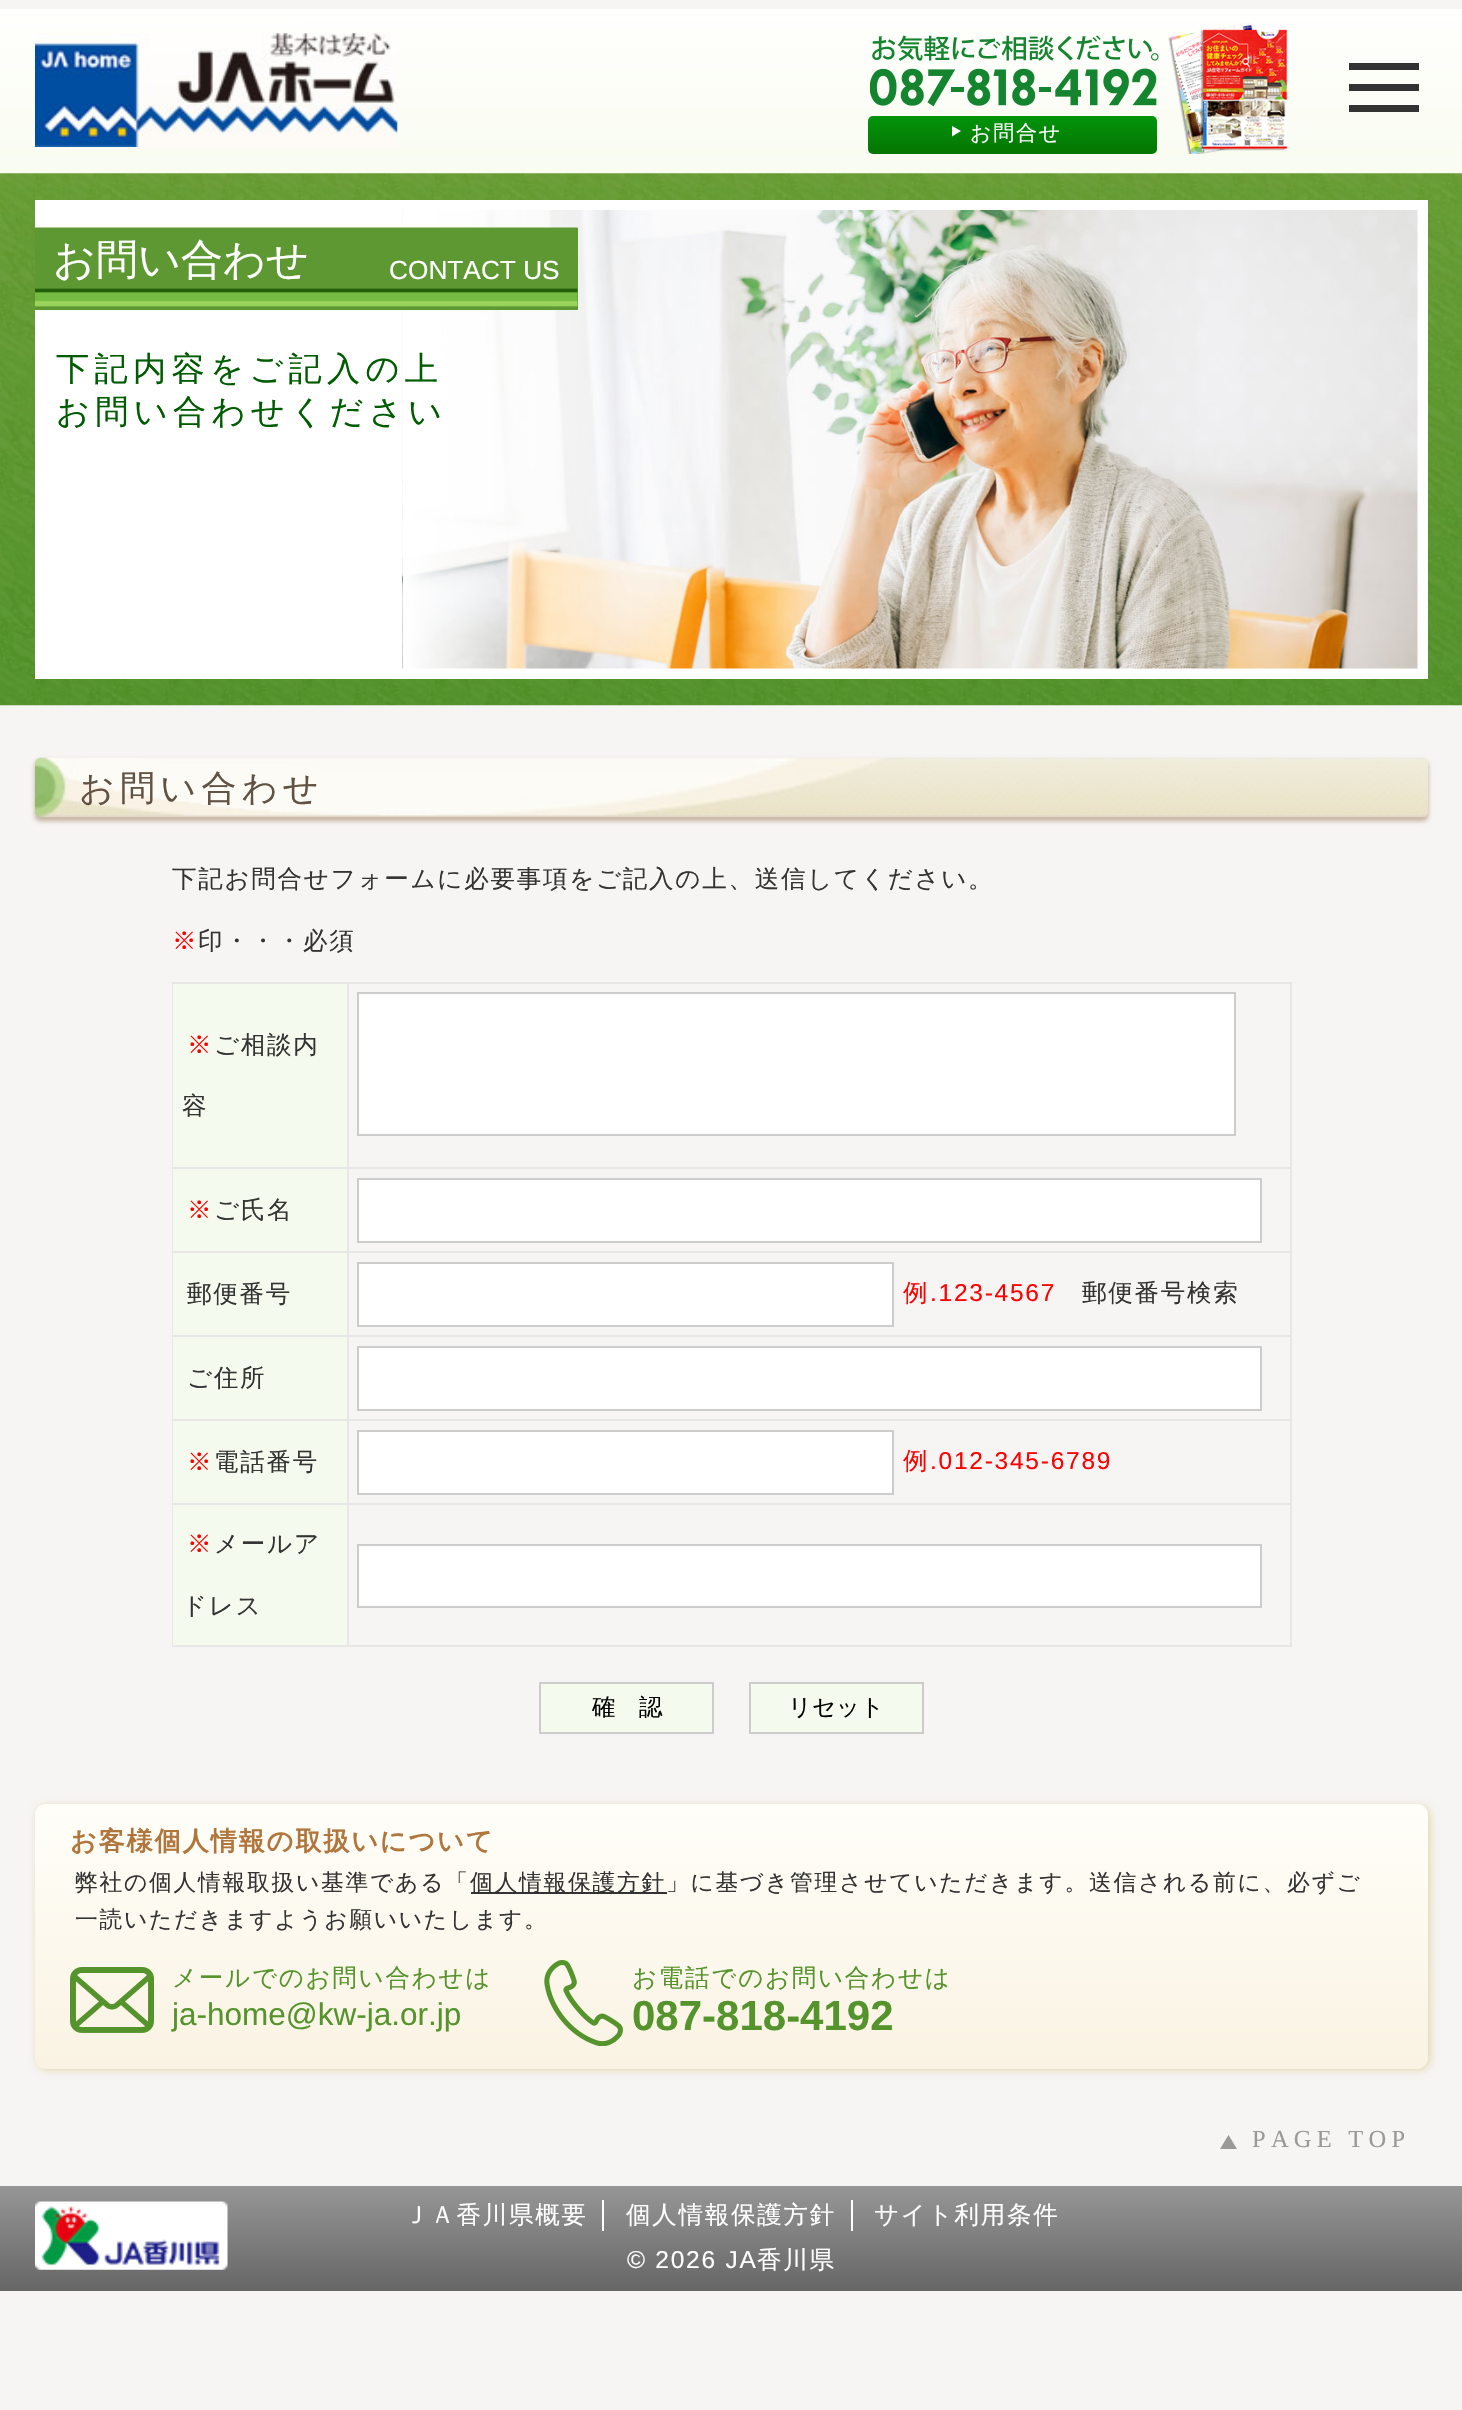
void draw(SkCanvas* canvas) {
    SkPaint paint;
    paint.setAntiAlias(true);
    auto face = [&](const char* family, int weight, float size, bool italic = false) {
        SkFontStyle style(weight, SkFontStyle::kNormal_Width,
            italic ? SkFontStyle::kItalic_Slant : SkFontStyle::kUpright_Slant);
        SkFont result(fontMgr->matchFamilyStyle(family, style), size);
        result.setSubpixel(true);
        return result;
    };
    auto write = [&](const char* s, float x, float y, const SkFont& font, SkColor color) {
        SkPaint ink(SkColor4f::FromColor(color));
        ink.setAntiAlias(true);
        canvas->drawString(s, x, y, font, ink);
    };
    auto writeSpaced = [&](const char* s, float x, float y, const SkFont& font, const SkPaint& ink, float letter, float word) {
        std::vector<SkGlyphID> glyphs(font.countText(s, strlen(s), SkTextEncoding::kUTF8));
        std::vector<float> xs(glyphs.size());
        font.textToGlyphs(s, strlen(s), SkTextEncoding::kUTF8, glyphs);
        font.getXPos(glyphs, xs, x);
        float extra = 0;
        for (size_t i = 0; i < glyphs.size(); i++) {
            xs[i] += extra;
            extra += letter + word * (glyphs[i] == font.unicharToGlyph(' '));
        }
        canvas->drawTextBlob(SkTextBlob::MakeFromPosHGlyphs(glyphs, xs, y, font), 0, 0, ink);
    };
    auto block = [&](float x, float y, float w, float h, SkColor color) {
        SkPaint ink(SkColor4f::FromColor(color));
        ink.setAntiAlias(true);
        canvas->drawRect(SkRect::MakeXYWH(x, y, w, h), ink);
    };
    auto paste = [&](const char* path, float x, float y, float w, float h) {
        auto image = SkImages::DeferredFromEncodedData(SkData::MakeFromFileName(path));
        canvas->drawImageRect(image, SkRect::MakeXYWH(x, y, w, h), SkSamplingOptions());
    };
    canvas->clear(SkColorSetRGB(247, 245, 244));
    {
        const SkColor colors[] = {SkColorSetRGB(255, 255, 253), SkColorSetRGB(249, 252, 241), SkColorSetRGB(247, 245, 244), SkColorSetRGB(247, 245, 244)};
        const float stops[] = {0, 0.07f, 0.12f, 1};
        const SkPoint ends[] = {{731, 9}, {732, 2291}};
        paint.setShader(SkGradientShader::MakeLinear(ends, colors, stops, 4, SkTileMode::kClamp));
        paint.setAlpha(255);
    }
    canvas->drawRect(SkRect::MakeXYWH(0, 9, 1462, 233), paint);
    paste("pic1.png", 35, 33, 363, 114);
    block(1349, 63, 70, 7, SkColorSetRGB(51, 51, 51));
    block(1349, 84, 70, 7, SkColorSetRGB(51, 51, 51));
    block(1349, 105, 70, 7, SkColorSetRGB(51, 51, 51));
    paste("pic2.png", 1168, 23, 120, 131);
    paste("pic3.png", 870, 35, 289, 72);
    {
        const SkColor colors[] = {SkColorSetRGB(3, 149, 12), SkColorSetRGB(4, 117, 1)};
        const float stops[] = {0, 1};
        const SkPoint ends[] = {{1012, 115}, {1012, 154}};
        paint.setShader(SkGradientShader::MakeLinear(ends, colors, stops, 2, SkTileMode::kClamp));
        paint.setAlpha(255);
    }
    canvas->drawRoundRect(SkRect::MakeXYWH(868, 116, 289, 38), 5, 5, paint);
    paint.setShader(nullptr);
    paint.setColor(SK_ColorWHITE);
    canvas->drawPath(SkPathBuilder().moveTo(952, 136.5f).lineTo(952, 126).lineTo(961, 131).close().detach(), paint);
    auto kFont1 = face("WenQuanYi Zen Hei", 500, 21);
    writeSpaced("お問合せ", 970, 140, kFont1, paint, 1.75f, 0);
    paste("pic4.png", 0, 173, 1462, 533);
    block(35, 200, 1393, 479, SK_ColorWHITE);
    paste("pic6.png", 402, 210, 1016, 459);
    {
        const SkColor colors[] = {SkColorSetARGB(0, 0, 0, 0), SkColorSetARGB(0, 255, 255, 255), SK_ColorWHITE};
        const float stops[] = {0, 0.7f, 1};
        const SkPoint ends[] = {{1428, 439}, {403, 439}};
        paint.setShader(SkGradientShader::MakeLinear(ends, colors, stops, 3, SkTileMode::kClamp));
        paint.setAlpha(255);
    }
    canvas->drawRect(SkRect::MakeXYWH(403, 210, 301, 459), paint);
    block(35, 228, 543, 82, SkColorSetRGB(94, 152, 51));
    paste("pic5.png", 35, 227, 543, 80);
    auto kFont2 = face("WenQuanYi Zen Hei", 500, 42);
    write("お問い合わせ", 53, 274, kFont2, SK_ColorWHITE);
    auto kFont3 = face("Liberation Sans", 400, 26.25f);
    write("CONTACT US", 389, 279, kFont3, SK_ColorWHITE);
    auto kFont4 = face("WenQuanYi Zen Hei", 500, 33.25f);
    paint.setShader(nullptr);
    paint.setColor(SkColorSetRGB(0, 92, 0));
    writeSpaced("下記内容をご記入の上", 56, 380, kFont4, paint, 5.25f, 0);
    writeSpaced("お問い合わせください", 56, 423, kFont4, paint, 5.25f, 0);
    paint.setColor(SkColorSetRGB(196, 176, 154));
    paint.setMaskFilter(SkMaskFilter::MakeBlur(kNormal_SkBlurStyle, 2.5f));
    canvas->drawRoundRect(SkRect::MakeXYWH(35, 761, 1393, 60), 5, 5, paint);
    paint.setMaskFilter(nullptr);
    paste("pic7.png", 35, 757, 1393, 61);
    auto kFont5 = face("WenQuanYi Zen Hei", 500, 35);
    paint.setColor(SkColorSetRGB(98, 82, 67));
    writeSpaced("お問い合わせ", 79, 800, kFont5, paint, 5.25f, 0);
    auto kFont6 = face("WenQuanYi Zen Hei", 500, 24.5f);
    paint.setColor(SkColorSetRGB(51, 51, 51));
    writeSpaced("下記お問合せフォームに必要事項をご記入の上、送信してください。", 172, 887, kFont6, paint, 1.75f, 0);
    paint.setColor(SkColorSetRGB(255, 0, 0));
    writeSpaced("※", 172, 949, kFont6, paint, 1.75f, 0);
    paint.setColor(SkColorSetRGB(51, 51, 51));
    writeSpaced("印・・・必須", 198, 949, kFont6, paint, 1.75f, 0);
    block(172, 982, 1120, 2, SkColorSetRGB(231, 231, 231));
    block(172, 982, 2, 665, SkColorSetRGB(231, 231, 231));
    block(173, 984, 174, 183, SkColorSetRGB(244, 250, 237));
    block(347, 984, 2, 663, SkColorSetRGB(231, 231, 231));
    block(173, 1167, 175, 2, SkColorSetRGB(231, 231, 231));
    paint.setColor(SkColorSetRGB(255, 0, 0));
    writeSpaced("※", 187, 1053, kFont6, paint, 1.75f, 0);
    paint.setColor(SkColorSetRGB(51, 51, 51));
    writeSpaced("ご相談内", 214, 1053, kFont6, paint, 1.75f, 0);
    writeSpaced("容", 182, 1114, kFont6, paint, 1.75f, 0);
    block(1290, 984, 2, 663, SkColorSetRGB(231, 231, 231));
    block(348, 1167, 944, 2, SkColorSetRGB(231, 231, 231));
    paint.setColor(SK_ColorWHITE);
    canvas->drawRect(SkRect::MakeXYWH(358, 993, 877, 142), paint);
    paint.setStyle(SkPaint::kStroke_Style);
    paint.setStrokeWidth(2);
    paint.setColor(SkColorSetRGB(204, 204, 204));
    canvas->drawRect(SkRect::MakeXYWH(358, 993, 877, 142), paint);
    block(173, 1169, 174, 82, SkColorSetRGB(244, 250, 237));
    block(173, 1251, 1119, 2, SkColorSetRGB(231, 231, 231));
    paint.setStyle(SkPaint::kFill_Style);
    paint.setColor(SkColorSetRGB(255, 0, 0));
    writeSpaced("※", 187, 1218, kFont6, paint, 1.75f, 0);
    paint.setColor(SkColorSetRGB(51, 51, 51));
    writeSpaced("ご氏名", 214, 1218, kFont6, paint, 1.75f, 0);
    paint.setColor(SK_ColorWHITE);
    canvas->drawRect(SkRect::MakeXYWH(358, 1179, 903, 63), paint);
    paint.setStyle(SkPaint::kStroke_Style);
    paint.setColor(SkColorSetRGB(204, 204, 204));
    canvas->drawRect(SkRect::MakeXYWH(358, 1179, 903, 63), paint);
    block(173, 1253, 174, 82, SkColorSetRGB(244, 250, 237));
    block(173, 1335, 1119, 2, SkColorSetRGB(231, 231, 231));
    paint.setStyle(SkPaint::kFill_Style);
    paint.setColor(SkColorSetRGB(51, 51, 51));
    writeSpaced("郵便番号", 187, 1302, kFont6, paint, 1.75f, 0);
    paint.setColor(SK_ColorWHITE);
    canvas->drawRect(SkRect::MakeXYWH(358, 1263, 535, 63), paint);
    paint.setStyle(SkPaint::kStroke_Style);
    paint.setColor(SkColorSetRGB(204, 204, 204));
    canvas->drawRect(SkRect::MakeXYWH(358, 1263, 535, 63), paint);
    paint.setStyle(SkPaint::kFill_Style);
    paint.setColor(SkColorSetRGB(255, 0, 0));
    writeSpaced("例", 903, 1301, kFont6, paint, 1.75f, 0);
    auto kFont7 = face("Liberation Sans", 400, 24.5f);
    writeSpaced(".123-4567", 930, 1301, kFont7, paint, 1.75f, 0);
    paint.setColor(SkColorSetRGB(51, 51, 51));
    writeSpaced("郵便番号検索", 1082, 1301, kFont6, paint, 1.75f, 0);
    block(173, 1337, 174, 82, SkColorSetRGB(244, 250, 237));
    block(173, 1419, 1119, 2, SkColorSetRGB(231, 231, 231));
    writeSpaced("ご住所", 187, 1386, kFont6, paint, 1.75f, 0);
    paint.setColor(SK_ColorWHITE);
    canvas->drawRect(SkRect::MakeXYWH(358, 1347, 903, 63), paint);
    paint.setStyle(SkPaint::kStroke_Style);
    paint.setColor(SkColorSetRGB(204, 204, 204));
    canvas->drawRect(SkRect::MakeXYWH(358, 1347, 903, 63), paint);
    block(173, 1421, 174, 82, SkColorSetRGB(244, 250, 237));
    block(173, 1503, 1119, 2, SkColorSetRGB(231, 231, 231));
    paint.setStyle(SkPaint::kFill_Style);
    paint.setColor(SkColorSetRGB(255, 0, 0));
    writeSpaced("※", 187, 1470, kFont6, paint, 1.75f, 0);
    paint.setColor(SkColorSetRGB(51, 51, 51));
    writeSpaced("電話番号", 214, 1470, kFont6, paint, 1.75f, 0);
    paint.setColor(SK_ColorWHITE);
    canvas->drawRect(SkRect::MakeXYWH(358, 1431, 535, 63), paint);
    paint.setStyle(SkPaint::kStroke_Style);
    paint.setColor(SkColorSetRGB(204, 204, 204));
    canvas->drawRect(SkRect::MakeXYWH(358, 1431, 535, 63), paint);
    paint.setStyle(SkPaint::kFill_Style);
    paint.setColor(SkColorSetRGB(255, 0, 0));
    writeSpaced("例", 903, 1469, kFont6, paint, 1.75f, 0);
    writeSpaced(".012-345-6789", 930, 1469, kFont7, paint, 1.75f, 0);
    block(173, 1505, 174, 140, SkColorSetRGB(244, 250, 237));
    block(173, 1645, 1119, 2, SkColorSetRGB(231, 231, 231));
    writeSpaced("※", 187, 1552, kFont6, paint, 1.75f, 0);
    paint.setColor(SkColorSetRGB(51, 51, 51));
    writeSpaced("メールア", 214, 1552, kFont6, paint, 1.75f, 0);
    writeSpaced("ドレス", 182, 1614, kFont6, paint, 1.75f, 0);
    paint.setColor(SK_ColorWHITE);
    canvas->drawRect(SkRect::MakeXYWH(358, 1545, 903, 62), paint);
    paint.setStyle(SkPaint::kStroke_Style);
    paint.setColor(SkColorSetRGB(204, 204, 204));
    canvas->drawRect(SkRect::MakeXYWH(358, 1545, 903, 62), paint);
    paint.setStyle(SkPaint::kFill_Style);
    paint.setColor(SkColorSetRGB(244, 250, 237));
    canvas->drawRect(SkRect::MakeXYWH(540, 1683, 173, 50), paint);
    paint.setStyle(SkPaint::kStroke_Style);
    paint.setColor(SkColorSetRGB(204, 204, 204));
    canvas->drawRect(SkRect::MakeXYWH(540, 1683, 173, 50), paint);
    auto kFont8 = face("WenQuanYi Zen Hei", 500, 23.5f);
    write("確　認", 592, 1715, kFont8, SK_ColorBLACK);
    paint.setStyle(SkPaint::kFill_Style);
    paint.setColor(SkColorSetRGB(244, 250, 237));
    canvas->drawRect(SkRect::MakeXYWH(750, 1683, 173, 50), paint);
    paint.setStyle(SkPaint::kStroke_Style);
    paint.setColor(SkColorSetRGB(204, 204, 204));
    canvas->drawRect(SkRect::MakeXYWH(750, 1683, 173, 50), paint);
    write("リセット", 788, 1715, kFont8, SK_ColorBLACK);
    paint.setStyle(SkPaint::kFill_Style);
    paint.setColor(SkColorSetRGB(227, 213, 170));
    paint.setMaskFilter(SkMaskFilter::MakeBlur(kNormal_SkBlurStyle, 4.5f));
    canvas->drawRoundRect(SkRect::MakeXYWH(37, 1806, 1393, 264), 11, 11, paint);
    paint.setMaskFilter(nullptr);
    {
        const SkColor colors[] = {SkColorSetRGB(255, 254, 249), SkColorSetRGB(250, 243, 227)};
        const float stops[] = {0, 1};
        const SkPoint ends[] = {{732, 1804}, {732, 2069}};
        paint.setShader(SkGradientShader::MakeLinear(ends, colors, stops, 2, SkTileMode::kClamp));
        paint.setAlpha(255);
    }
    canvas->drawRoundRect(SkRect::MakeXYWH(35, 1804, 1393, 265), 11, 11, paint);
    auto kFont9 = face("WenQuanYi Zen Hei", 700, 26.25f);
    paint.setShader(nullptr);
    paint.setColor(SkColorSetRGB(176, 118, 60));
    writeSpaced("お客様個人情報の取扱いについて", 70, 1850, kFont9, paint, 1.75f, 0);
    auto kFont10 = face("WenQuanYi Zen Hei", 500, 22.75f);
    paint.setColor(SkColorSetRGB(51, 51, 51));
    writeSpaced("弊社の個人情報取扱い基準である「", 75, 1890, kFont10, paint, 1.75f, 0);
    block(471, 1892, 196, 2, SkColorSetRGB(51, 51, 51));
    writeSpaced("個人情報保護方針」に基づき管理させていただきます。送信される前に、必ずご", 470, 1890, kFont10, paint, 1.75f, 0);
    writeSpaced("一読いただきますようお願いいたします。", 75, 1927, kFont10, paint, 1.75f, 0);
    paste("pic8.png", 70, 1967, 84, 66);
    paint.setColor(SkColorSetRGB(85, 147, 44));
    writeSpaced("メールでのお問い合わせは", 172, 1986, kFont6, paint, 1.75f, 0);
    auto kFont11 = face("Liberation Sans", 400, 31.5f);
    write("ja-home@kw-ja.or.jp", 172, 2025, kFont11, SkColorSetRGB(85, 147, 44));
    paste("pic9.png", 544, 1960, 79, 86);
    writeSpaced("お電話でのお問い合わせは", 632, 1986, kFont6, paint, 1.75f, 0);
    auto kFont12 = face("Liberation Sans", 700, 42);
    write("087-818-4192", 632, 2030, kFont12, SkColorSetRGB(85, 147, 44));
    paint.setColor(SkColorSetRGB(153, 153, 153));
    canvas->drawPath(SkPathBuilder().moveTo(1237, 2149).lineTo(1220, 2149).lineTo(1228.5f, 2135).close().detach(), paint);
    auto kFont13 = face("Liberation Serif", 400, 24.5f);
    writeSpaced("PAGE TOP", 1252, 2147, kFont13, paint, 5.25f, 0);
    {
        const SkColor colors[] = {SkColorSetRGB(150, 150, 150), SkColorSetRGB(102, 102, 102)};
        const float stops[] = {0, 1};
        const SkPoint ends[] = {{732, 2186}, {732, 2291}};
        paint.setShader(SkGradientShader::MakeLinear(ends, colors, stops, 2, SkTileMode::kClamp));
        paint.setAlpha(255);
    }
    canvas->drawRect(SkRect::MakeXYWH(0, 2186, 1462, 105), paint);
    paste("pic10.png", 35, 2201, 193, 69);
    block(602, 2200, 2, 31, SK_ColorWHITE);
    paint.setShader(nullptr);
    paint.setColor(SK_ColorWHITE);
    writeSpaced("ＪＡ香川県概要", 404, 2223, kFont6, paint, 1.75f, 0);
    block(851, 2200, 2, 31, SK_ColorWHITE);
    writeSpaced("個人情報保護方針", 626, 2223, kFont6, paint, 1.75f, 0);
    writeSpaced("サイト利用条件", 874, 2223, kFont6, paint, 1.75f, 0);
    writeSpaced("© 2026 JA", 627, 2268, kFont7, paint, 1.75f, 0);
    writeSpaced("香川県", 757, 2268, kFont6, paint, 1.75f, 0);
}
